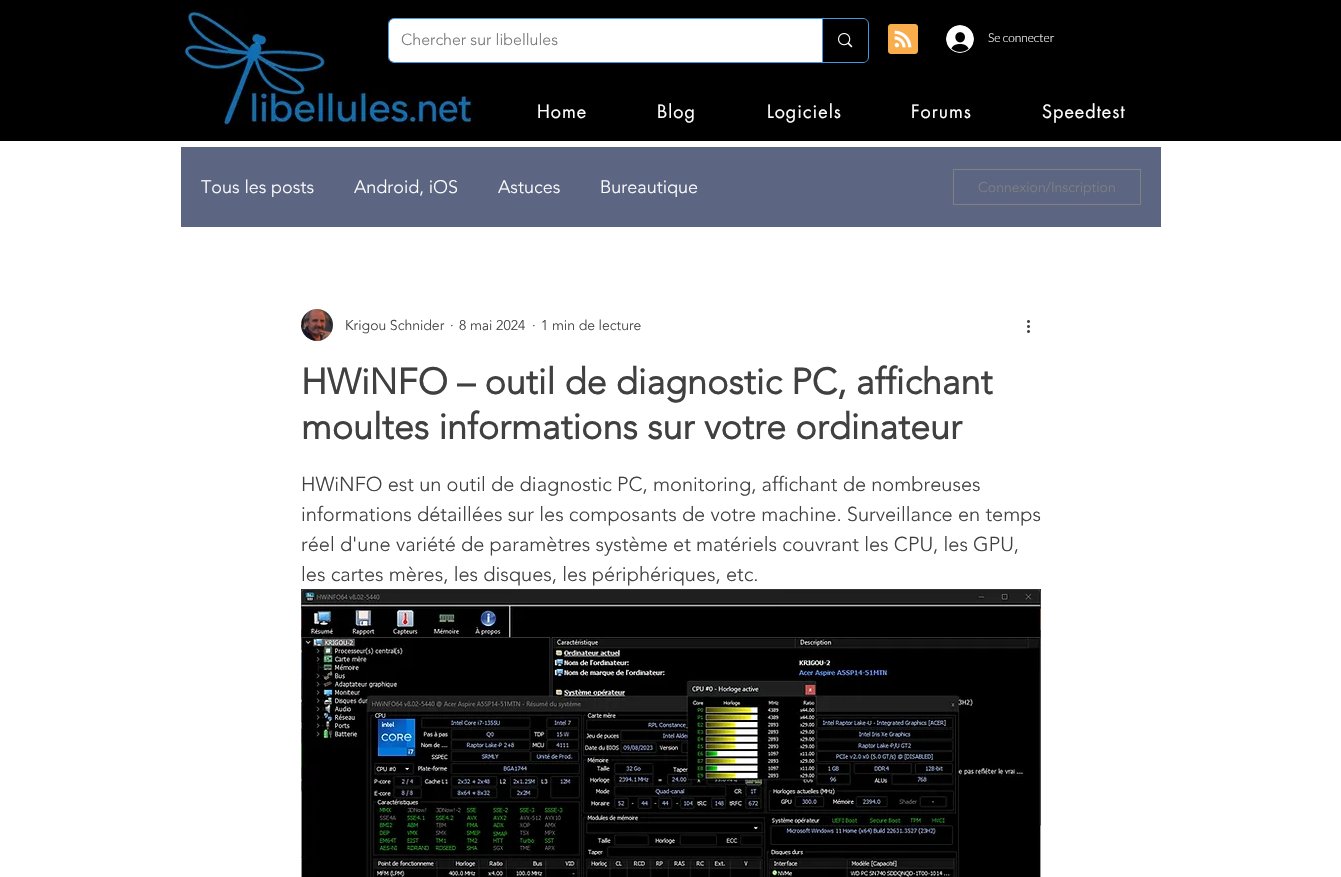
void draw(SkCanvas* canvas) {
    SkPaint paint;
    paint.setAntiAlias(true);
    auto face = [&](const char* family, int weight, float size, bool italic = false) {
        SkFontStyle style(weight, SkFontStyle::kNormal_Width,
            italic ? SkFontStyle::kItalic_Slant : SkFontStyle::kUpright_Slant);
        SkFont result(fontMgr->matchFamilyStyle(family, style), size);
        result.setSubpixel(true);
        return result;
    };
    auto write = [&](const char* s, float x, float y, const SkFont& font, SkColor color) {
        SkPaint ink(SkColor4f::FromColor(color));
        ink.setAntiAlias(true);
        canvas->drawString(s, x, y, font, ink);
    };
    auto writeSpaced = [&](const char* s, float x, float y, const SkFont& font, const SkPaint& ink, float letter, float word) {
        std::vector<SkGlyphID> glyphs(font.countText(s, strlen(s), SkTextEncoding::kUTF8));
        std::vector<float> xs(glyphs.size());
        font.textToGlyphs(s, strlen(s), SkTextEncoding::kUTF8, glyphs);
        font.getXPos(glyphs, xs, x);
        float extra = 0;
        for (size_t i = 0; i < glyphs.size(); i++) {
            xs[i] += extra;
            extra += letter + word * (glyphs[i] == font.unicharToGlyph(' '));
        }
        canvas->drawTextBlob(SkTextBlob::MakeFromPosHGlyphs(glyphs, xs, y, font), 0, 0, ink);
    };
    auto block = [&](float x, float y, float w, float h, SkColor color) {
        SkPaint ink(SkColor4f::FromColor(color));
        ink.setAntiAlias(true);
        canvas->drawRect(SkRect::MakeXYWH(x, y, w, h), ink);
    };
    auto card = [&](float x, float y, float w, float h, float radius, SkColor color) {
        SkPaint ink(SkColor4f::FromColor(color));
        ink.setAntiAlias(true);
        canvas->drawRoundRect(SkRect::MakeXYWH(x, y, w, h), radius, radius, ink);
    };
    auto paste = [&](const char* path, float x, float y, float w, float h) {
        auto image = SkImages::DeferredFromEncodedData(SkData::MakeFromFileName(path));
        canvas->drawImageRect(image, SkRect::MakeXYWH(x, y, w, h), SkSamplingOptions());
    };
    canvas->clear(SK_ColorWHITE);
    block(0, 0, 1341, 141, SK_ColorBLACK);
    paste("pic1.png", 181, 9, 294, 120);
    paint.setStyle(SkPaint::kStroke_Style);
    paint.setStrokeWidth(1);
    paint.setColor(SkColorSetRGB(61, 155, 233));
    canvas->drawRoundRect(SkRect::MakeXYWH(388.5f, 18.5f, 480, 44), 5.5f, 5.5f, paint);
    card(389, 19, 479, 43, 5, SK_ColorWHITE);
    auto kFont1 = face("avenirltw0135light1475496", 300, 16);
    write("Chercher sur libellules", 401, 45, kFont1, SkColorSetRGB(120, 120, 120));
    paint.setStyle(SkPaint::kFill_Style);
    paint.setColor(SK_ColorBLACK);
    canvas->drawPath(SkPathBuilder().moveTo(822, 19).lineTo(863, 19).cubicTo(866, 19, 868, 21, 868, 24).lineTo(868, 57).cubicTo(868, 60, 866, 62, 863, 62).lineTo(822, 62).close().detach(), paint);
    block(822, 19, 1, 43, SkColorSetRGB(61, 155, 233));
    paste("pic2.png", 838, 33, 15, 15);
    paste("pic3.png", 888, 24, 30, 30);
    paste("pic4.png", 946, 25, 28, 28);
    auto kFont2 = face("Lato", 300, 12);
    write("Se connecter", 988, 42, kFont2, SK_ColorWHITE);
    auto kFont3 = face("futura", 400, 18);
    paint.setColor(SK_ColorWHITE);
    writeSpaced("Home", 537, 118, kFont3, paint, 1, 0);
    writeSpaced("Blog", 657, 118, kFont3, paint, 1, 0);
    writeSpaced("Logiciels", 767, 118, kFont3, paint, 1, 0);
    writeSpaced("Forums", 911, 118, kFont3, paint, 1, 0);
    writeSpaced("Speedtest", 1042, 118, kFont3, paint, 1, 0);
    block(181, 147, 980, 80, SkColorSetRGB(92, 102, 131));
    auto kFont4 = face("avenirltw0135light1475496", 300, 18);
    write("Tous les posts", 201, 193, kFont4, SK_ColorWHITE);
    write("Android, iOS", 354, 193, kFont4, SK_ColorWHITE);
    write("Astuces", 498, 193, kFont4, SK_ColorWHITE);
    write("Bureautique", 600, 193, kFont4, SK_ColorWHITE);
    paint.setStyle(SkPaint::kStroke_Style);
    paint.setColor(SkColorSetRGB(128, 128, 128));
    canvas->drawRect(SkRect::MakeXYWH(953.5f, 169.5f, 187, 35), paint);
    auto kFont5 = face("avenirltw0135light1475496", 300, 14);
    write("Connexion/Inscription", 978, 192, kFont5, SkColorSetRGB(128, 128, 128));
    paste("pic5.png", 301, 309, 32, 32);
    write("Krigou Schnider", 345, 330, kFont5, SkColorSetRGB(64, 64, 64));
    write("·", 450, 330, kFont5, SkColorSetRGB(64, 64, 64));
    write("8 mai 2024", 459, 330, kFont5, SkColorSetRGB(64, 64, 64));
    write("·", 532, 330, kFont5, SkColorSetRGB(64, 64, 64));
    write("1 min de lecture", 541, 330, kFont5, SkColorSetRGB(64, 64, 64));
    paste("pic6.png", 1027, 320, 3, 13);
    auto kFont6 = face("avenirltw0135light1475496", 700, 36);
    write("HWiNFO – outil de diagnostic PC, affichant", 301, 394, kFont6, SkColorSetRGB(64, 64, 64));
    write("moultes informations sur votre ordinateur", 301, 439, kFont6, SkColorSetRGB(64, 64, 64));
    auto kFont7 = face("avenirltw0135light1475496", 300, 20);
    write("HWiNFO est un outil de diagnostic PC, monitoring, affichant de nombreuses", 301, 491, kFont7, SkColorSetRGB(64, 64, 64));
    write("informations détaillées sur les composants de votre machine. Surveillance en temps", 301, 521, kFont7, SkColorSetRGB(64, 64, 64));
    write("réel d'une variété de paramètres système et matériels couvrant les CPU, les GPU,", 301, 551, kFont7, SkColorSetRGB(64, 64, 64));
    write("les cartes mères, les disques, les périphériques, etc.", 301, 581, kFont7, SkColorSetRGB(64, 64, 64));
    paste("pic7.png", 301, 589, 740, 288);
}
